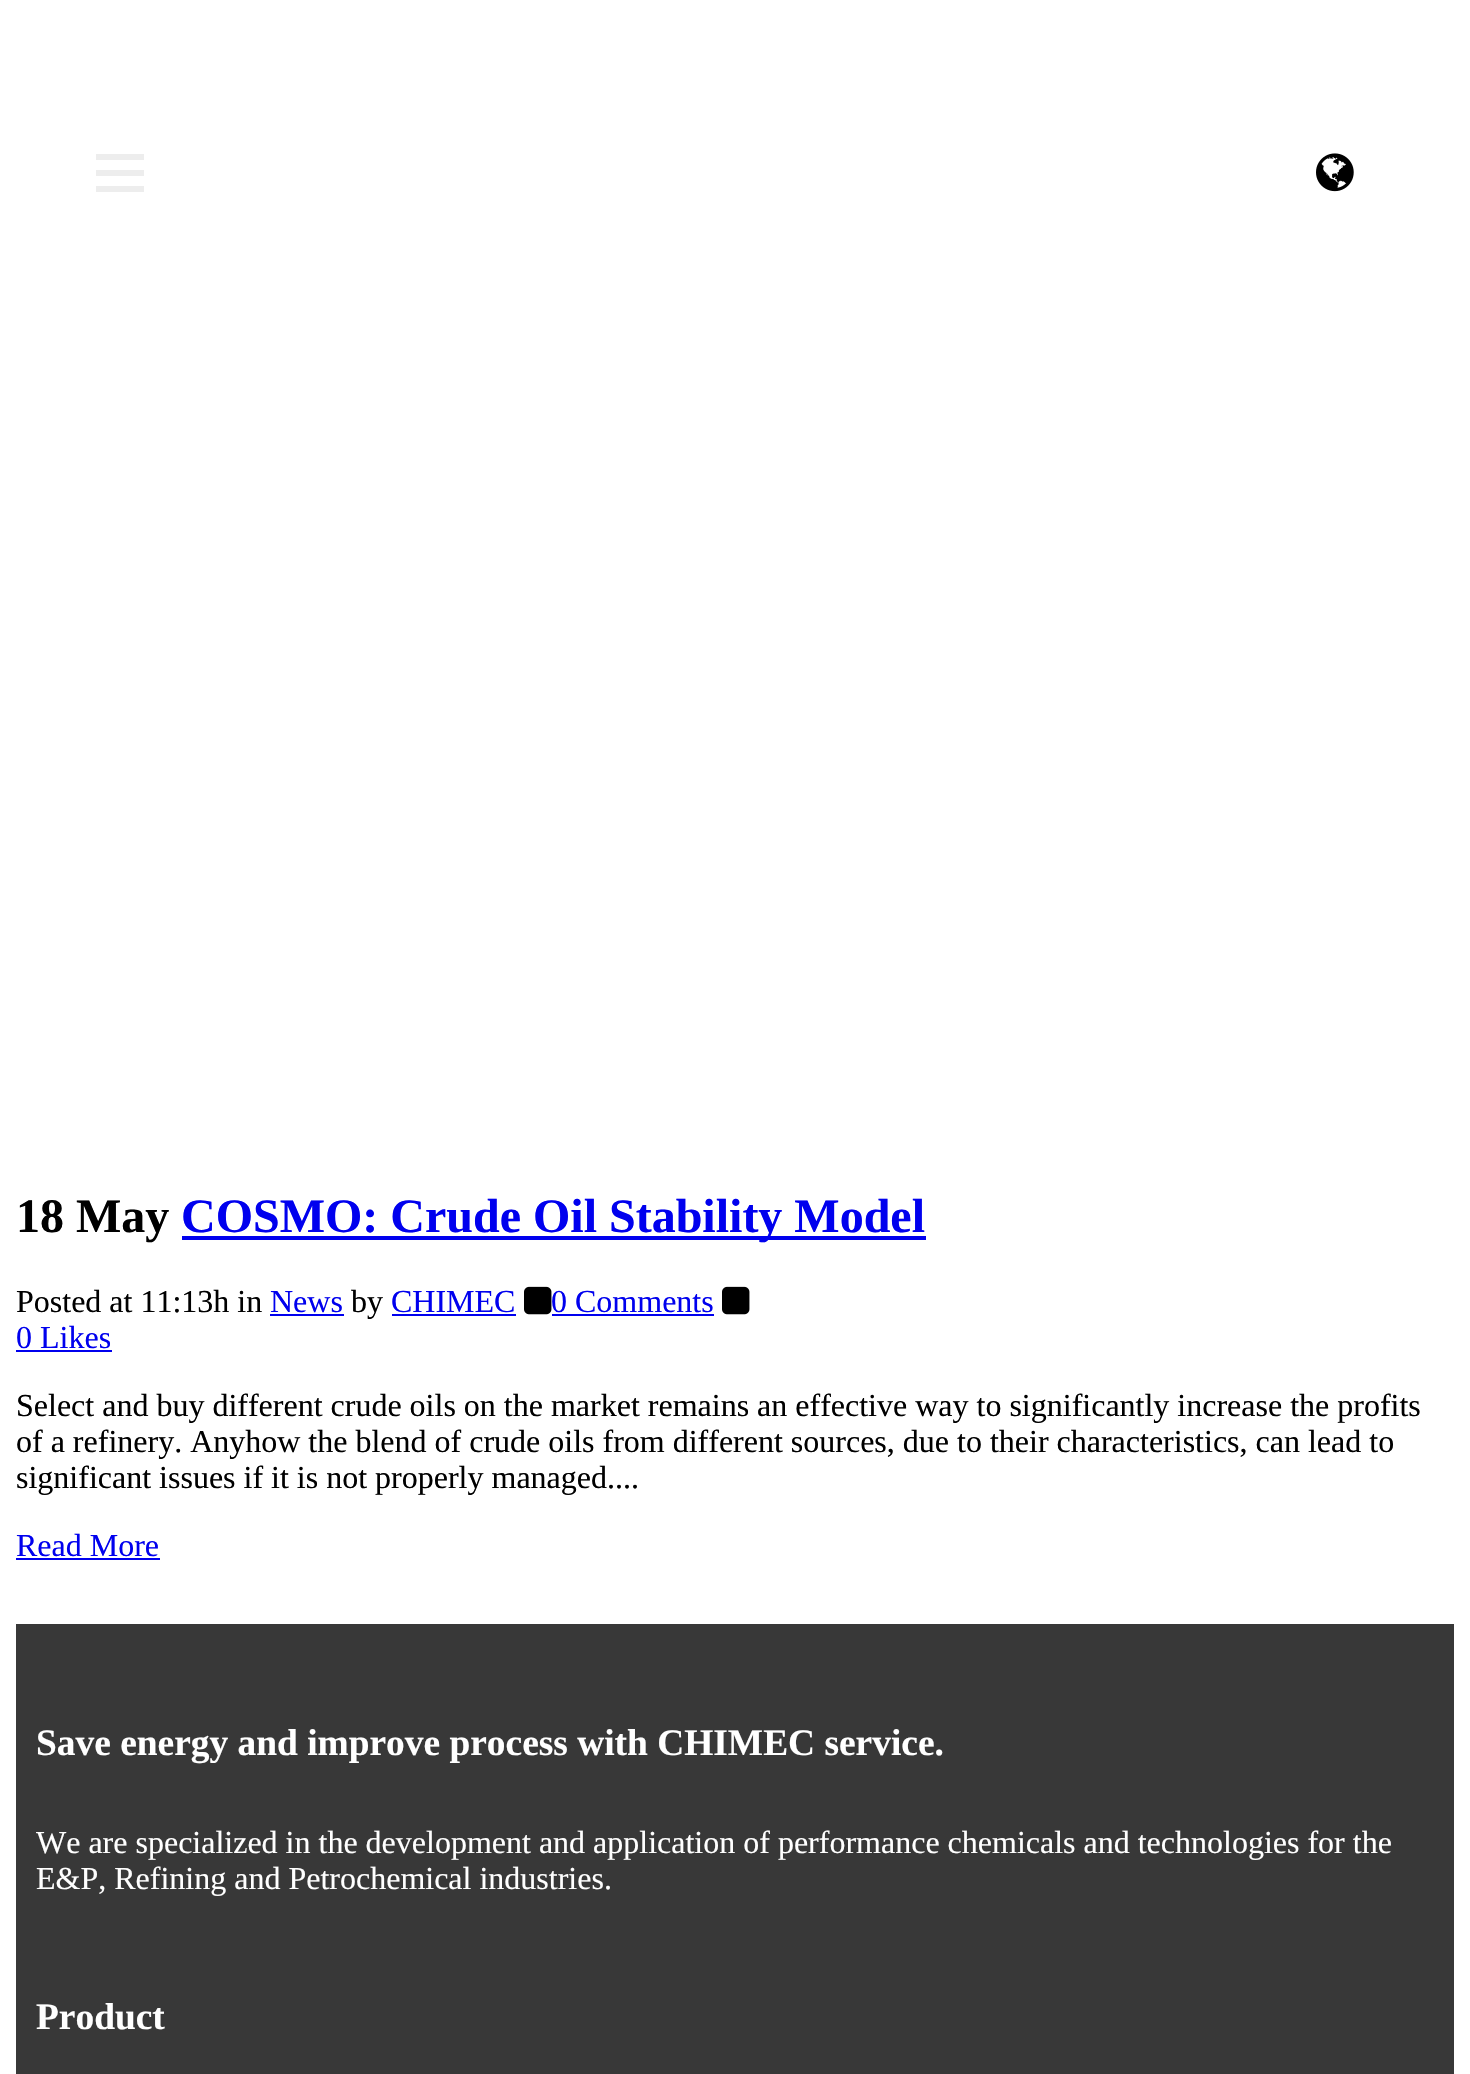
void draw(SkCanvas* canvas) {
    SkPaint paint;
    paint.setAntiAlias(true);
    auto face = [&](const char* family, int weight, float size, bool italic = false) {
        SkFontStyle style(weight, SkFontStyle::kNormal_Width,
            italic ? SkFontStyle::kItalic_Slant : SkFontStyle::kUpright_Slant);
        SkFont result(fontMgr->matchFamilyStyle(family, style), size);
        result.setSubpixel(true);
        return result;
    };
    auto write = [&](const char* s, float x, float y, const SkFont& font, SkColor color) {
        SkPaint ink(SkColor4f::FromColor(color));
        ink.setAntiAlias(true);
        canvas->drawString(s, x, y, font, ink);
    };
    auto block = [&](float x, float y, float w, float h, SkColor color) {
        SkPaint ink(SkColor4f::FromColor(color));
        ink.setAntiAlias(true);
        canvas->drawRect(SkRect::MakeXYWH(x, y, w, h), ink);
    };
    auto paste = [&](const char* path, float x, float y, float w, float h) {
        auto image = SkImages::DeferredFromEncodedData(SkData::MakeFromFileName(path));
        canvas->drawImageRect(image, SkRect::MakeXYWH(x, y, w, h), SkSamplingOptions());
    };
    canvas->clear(SK_ColorWHITE);
    block(96, 154, 48, 6, SkColorSetRGB(237, 237, 237));
    block(96, 170, 48, 6, SkColorSetRGB(237, 237, 237));
    block(96, 186, 48, 6, SkColorSetRGB(237, 237, 237));
    paste("pic1.png", 1316, 153, 38, 39);
    auto kFont1 = face("Liberation Serif", 700, 48);
    write("18 May", 16, 1232, kFont1, SK_ColorBLACK);
    block(182, 1236, 744, 4, SkColorSetRGB(0, 0, 238));
    write("COSMO: Crude Oil Stability Model", 181, 1232, kFont1, SkColorSetRGB(0, 0, 238));
    auto kFont2 = face("Liberation Serif", 400, 32);
    write("Posted at 11:13h in", 16, 1312, kFont2, SK_ColorBLACK);
    write("News", 270, 1312, kFont2, SkColorSetRGB(0, 0, 238));
    block(270, 1314, 74, 2, SkColorSetRGB(0, 0, 238));
    write("by", 351, 1312, kFont2, SK_ColorBLACK);
    write("CHIMEC", 391, 1312, kFont2, SkColorSetRGB(0, 0, 238));
    block(392, 1314, 124, 2, SkColorSetRGB(0, 0, 238));
    paste("pic2.png", 524, 1286, 28, 29);
    write("0 Comments", 551, 1312, kFont2, SkColorSetRGB(0, 0, 238));
    block(552, 1314, 162, 2, SkColorSetRGB(0, 0, 238));
    paste("pic2.png", 722, 1286, 28, 29);
    write("0 Likes", 16, 1348, kFont2, SkColorSetRGB(0, 0, 238));
    block(16, 1350, 96, 2, SkColorSetRGB(0, 0, 238));
    write("Select and buy different crude oils on the market remains an effective way to significantly increase the profits", 16, 1416, kFont2, SK_ColorBLACK);
    write("of a refinery. Anyhow the blend of crude oils from different sources, due to their characteristics, can lead to", 16, 1452, kFont2, SK_ColorBLACK);
    write("significant issues if it is not properly managed....", 16, 1488, kFont2, SK_ColorBLACK);
    write("Read More", 16, 1556, kFont2, SkColorSetRGB(0, 0, 238));
    block(16, 1558, 144, 2, SkColorSetRGB(0, 0, 238));
    block(16, 1624, 1438, 450, SkColorSetRGB(56, 56, 56));
    auto kFont3 = face("Liberation Serif", 700, 37.4f);
    write("Save energy and improve process with CHIMEC service.", 36, 1755, kFont3, SK_ColorWHITE);
    write("We are specialized in the development and application of performance chemicals and technologies for the", 36, 1853, kFont2, SK_ColorWHITE);
    write("E&P, Refining and Petrochemical industries.", 36, 1889, kFont2, SK_ColorWHITE);
    write("Product", 36, 2029, kFont3, SK_ColorWHITE);
}
